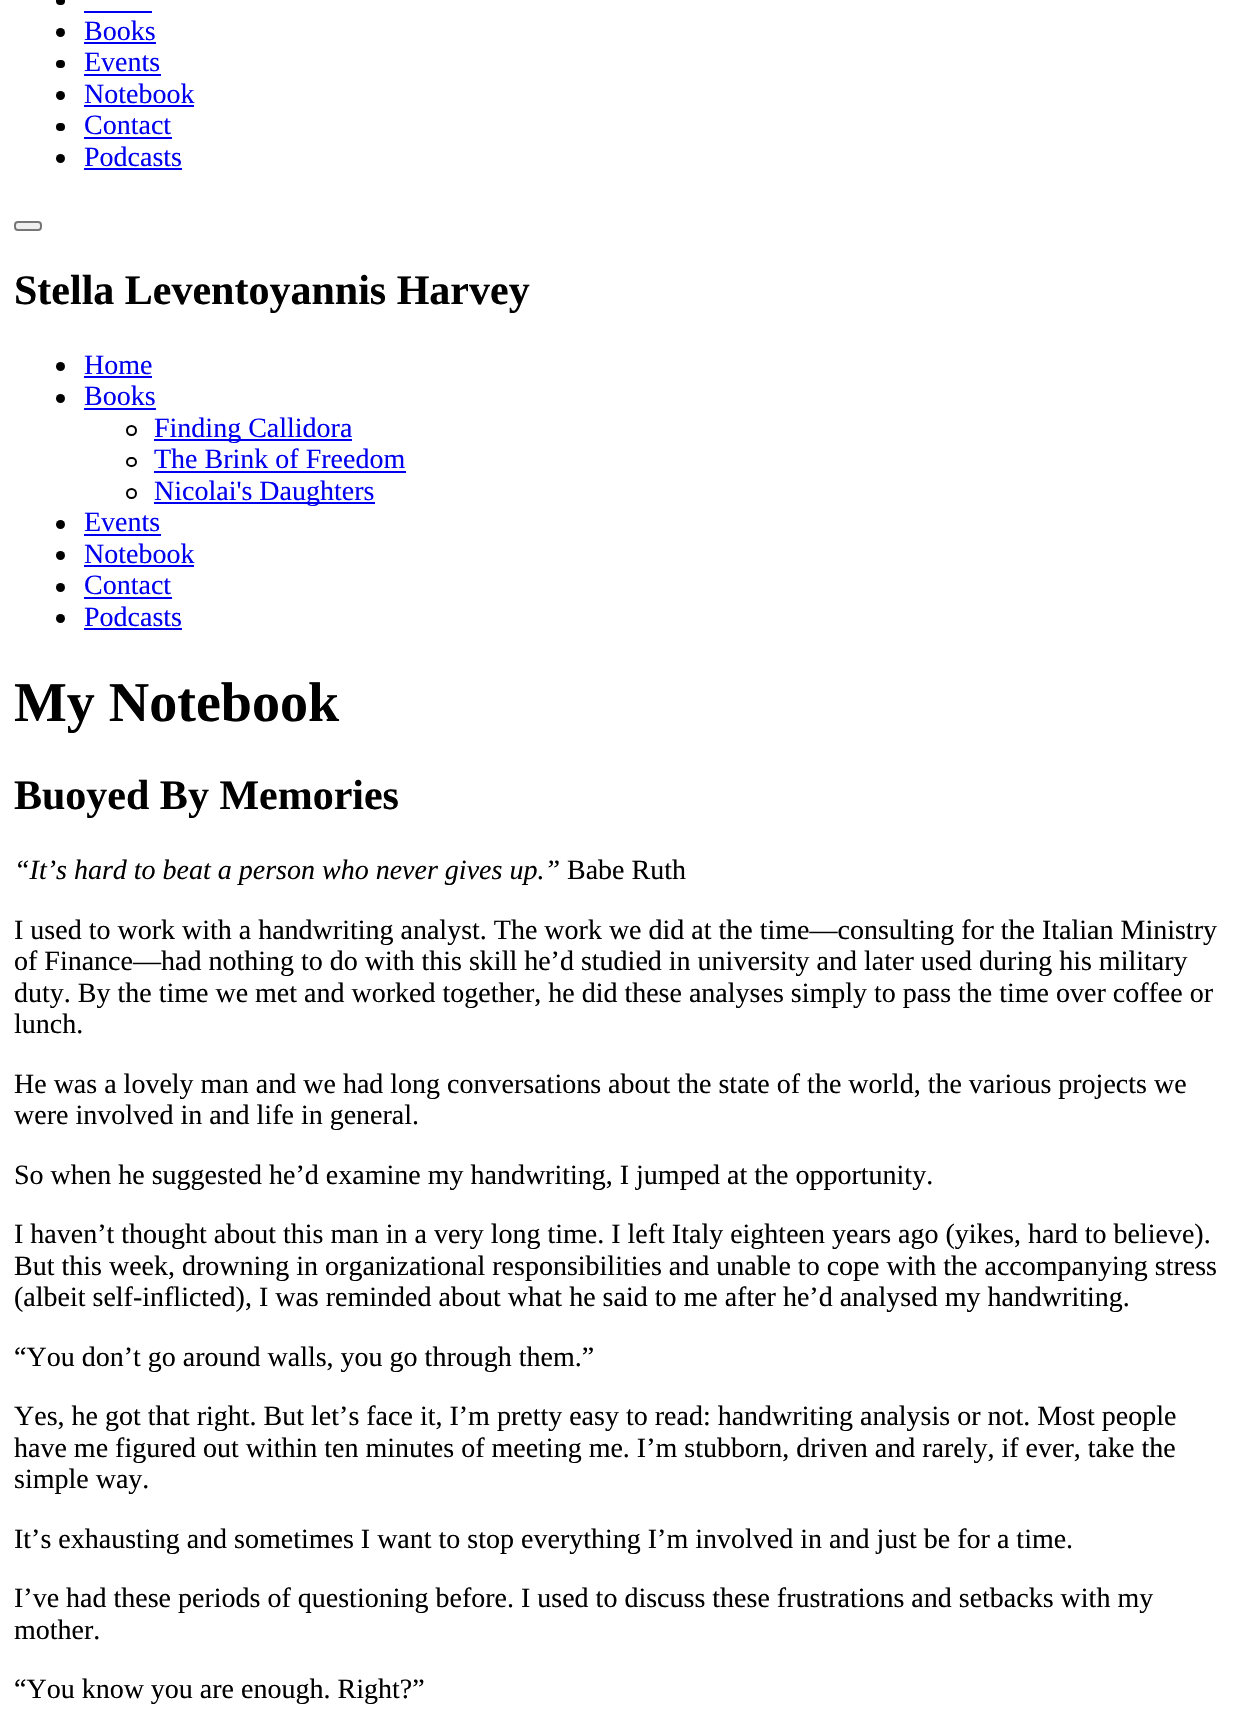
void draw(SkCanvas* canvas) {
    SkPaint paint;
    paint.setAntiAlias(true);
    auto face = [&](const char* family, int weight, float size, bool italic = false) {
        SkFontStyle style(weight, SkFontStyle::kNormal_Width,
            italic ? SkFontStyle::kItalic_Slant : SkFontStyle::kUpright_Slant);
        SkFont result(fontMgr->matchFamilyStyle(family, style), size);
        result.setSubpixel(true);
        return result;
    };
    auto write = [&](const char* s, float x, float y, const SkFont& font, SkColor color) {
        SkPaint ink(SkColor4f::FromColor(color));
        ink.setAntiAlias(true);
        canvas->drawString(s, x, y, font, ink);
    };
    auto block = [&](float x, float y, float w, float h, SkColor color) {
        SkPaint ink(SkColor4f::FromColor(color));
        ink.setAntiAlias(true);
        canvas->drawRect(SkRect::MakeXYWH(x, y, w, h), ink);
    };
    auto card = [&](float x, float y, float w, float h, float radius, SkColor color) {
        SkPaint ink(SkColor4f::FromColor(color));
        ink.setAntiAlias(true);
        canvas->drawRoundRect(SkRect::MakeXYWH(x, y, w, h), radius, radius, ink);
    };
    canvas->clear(SK_ColorWHITE);
    card(56, -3, 9, 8, 4, SK_ColorBLACK);
    block(84, 11, 68, 2, SkColorSetRGB(0, 0, 238));
    paint.setColor(SK_ColorBLACK);
    canvas->drawCircle(60.5f, 32.5f, 4.5f, paint);
    auto kFont1 = face("Liberation Serif", 400, 28);
    write("Books", 84, 40, kFont1, SkColorSetRGB(0, 0, 238));
    block(84, 42, 72, 2, SkColorSetRGB(0, 0, 238));
    card(56, 60, 9, 8, 4, SK_ColorBLACK);
    write("Events", 84, 71, kFont1, SkColorSetRGB(0, 0, 238));
    block(84, 74, 77, 2, SkColorSetRGB(0, 0, 238));
    canvas->drawCircle(60.5f, 95.5f, 4.5f, paint);
    write("Notebook", 84, 103, kFont1, SkColorSetRGB(0, 0, 238));
    block(84, 105, 110, 2, SkColorSetRGB(0, 0, 238));
    card(56, 123, 9, 8, 4, SK_ColorBLACK);
    write("Contact", 84, 134, kFont1, SkColorSetRGB(0, 0, 238));
    block(84, 137, 88, 2, SkColorSetRGB(0, 0, 238));
    canvas->drawCircle(60.5f, 158.5f, 4.5f, paint);
    write("Podcasts", 84, 166, kFont1, SkColorSetRGB(0, 0, 238));
    block(84, 168, 98, 2, SkColorSetRGB(0, 0, 238));
    paint.setColor(SkColorSetRGB(239, 239, 239));
    canvas->drawRoundRect(SkRect::MakeXYWH(15, 222, 26, 8), 3, 3, paint);
    paint.setStyle(SkPaint::kStroke_Style);
    paint.setStrokeWidth(2);
    paint.setColor(SkColorSetRGB(118, 118, 118));
    canvas->drawRoundRect(SkRect::MakeXYWH(15, 222, 26, 8), 3, 3, paint);
    auto kFont2 = face("Liberation Serif", 700, 42);
    write("Stella Leventoyannis Harvey", 14, 304, kFont2, SK_ColorBLACK);
    paint.setStyle(SkPaint::kFill_Style);
    paint.setColor(SK_ColorBLACK);
    canvas->drawCircle(60.5f, 366.5f, 4.5f, paint);
    write("Home", 84, 374, kFont1, SkColorSetRGB(0, 0, 238));
    block(84, 376, 68, 2, SkColorSetRGB(0, 0, 238));
    canvas->drawCircle(60.5f, 398.5f, 4.5f, paint);
    write("Books", 84, 405, kFont1, SkColorSetRGB(0, 0, 238));
    block(84, 408, 72, 2, SkColorSetRGB(0, 0, 238));
    paint.setStyle(SkPaint::kStroke_Style);
    canvas->drawCircle(131.5f, 430.5f, 4.5f, paint);
    block(154, 439, 198, 2, SkColorSetRGB(0, 0, 238));
    write("Finding Callidora", 154, 437, kFont1, SkColorSetRGB(0, 0, 238));
    canvas->drawRoundRect(SkRect::MakeXYWH(127, 458, 9, 8), 4, 4, paint);
    write("The Brink of Freedom", 154, 468, kFont1, SkColorSetRGB(0, 0, 238));
    block(154, 471, 252, 2, SkColorSetRGB(0, 0, 238));
    canvas->drawCircle(131.5f, 493.5f, 4.5f, paint);
    block(154, 502, 221, 2, SkColorSetRGB(0, 0, 238));
    write("Nicolai's Daughters", 154, 500, kFont1, SkColorSetRGB(0, 0, 238));
    paint.setStyle(SkPaint::kFill_Style);
    canvas->drawCircle(60.5f, 524.5f, 4.5f, paint);
    write("Events", 84, 531, kFont1, SkColorSetRGB(0, 0, 238));
    block(84, 534, 77, 2, SkColorSetRGB(0, 0, 238));
    canvas->drawCircle(60.5f, 555.5f, 4.5f, paint);
    write("Notebook", 84, 563, kFont1, SkColorSetRGB(0, 0, 238));
    block(84, 565, 110, 2, SkColorSetRGB(0, 0, 238));
    canvas->drawCircle(60.5f, 587.5f, 4.5f, paint);
    write("Contact", 84, 594, kFont1, SkColorSetRGB(0, 0, 238));
    block(84, 597, 88, 2, SkColorSetRGB(0, 0, 238));
    canvas->drawCircle(60.5f, 618.5f, 4.5f, paint);
    write("Podcasts", 84, 626, kFont1, SkColorSetRGB(0, 0, 238));
    block(84, 628, 98, 2, SkColorSetRGB(0, 0, 238));
    auto kFont3 = face("Liberation Serif", 700, 56);
    write("My Notebook", 14, 721, kFont3, SK_ColorBLACK);
    write("Buoyed By Memories", 14, 809, kFont2, SK_ColorBLACK);
    auto kFont4 = face("Liberation Serif", 400, 28, true);
    write("“It’s hard to beat a person who never gives up.”", 14, 879, kFont4, SK_ColorBLACK);
    write("Babe Ruth", 567, 879, kFont1, SK_ColorBLACK);
    write("I used to work with a handwriting analyst. The work we did at the time—consulting for the Italian Ministry", 14, 939, kFont1, SK_ColorBLACK);
    write("of Finance—had nothing to do with this skill he’d studied in university and later used during his military", 14, 970, kFont1, SK_ColorBLACK);
    write("duty. By the time we met and worked together, he did these analyses simply to pass the time over coffee or", 14, 1002, kFont1, SK_ColorBLACK);
    write("lunch.", 14, 1033, kFont1, SK_ColorBLACK);
    write("He was a lovely man and we had long conversations about the state of the world, the various projects we", 14, 1093, kFont1, SK_ColorBLACK);
    write("were involved in and life in general.", 14, 1124, kFont1, SK_ColorBLACK);
    write("So when he suggested he’d examine my handwriting, I jumped at the opportunity.", 14, 1184, kFont1, SK_ColorBLACK);
    write("I haven’t thought about this man in a very long time. I left Italy eighteen years ago (yikes, hard to believe).", 14, 1243, kFont1, SK_ColorBLACK);
    write("But this week, drowning in organizational responsibilities and unable to cope with the accompanying stress", 14, 1275, kFont1, SK_ColorBLACK);
    write("(albeit self-inflicted), I was reminded about what he said to me after he’d analysed my handwriting.", 14, 1306, kFont1, SK_ColorBLACK);
    write("“You don’t go around walls, you go through them.”", 14, 1366, kFont1, SK_ColorBLACK);
    write("Yes, he got that right. But let’s face it, I’m pretty easy to read: handwriting analysis or not. Most people", 14, 1425, kFont1, SK_ColorBLACK);
    write("have me figured out within ten minutes of meeting me. I’m stubborn, driven and rarely, if ever, take the", 14, 1457, kFont1, SK_ColorBLACK);
    write("simple way.", 14, 1488, kFont1, SK_ColorBLACK);
    write("It’s exhausting and sometimes I want to stop everything I’m involved in and just be for a time.", 14, 1548, kFont1, SK_ColorBLACK);
    write("I’ve had these periods of questioning before. I used to discuss these frustrations and setbacks with my", 14, 1607, kFont1, SK_ColorBLACK);
    write("mother.", 14, 1639, kFont1, SK_ColorBLACK);
    write("“You know you are enough. Right?”", 14, 1698, kFont1, SK_ColorBLACK);
}
